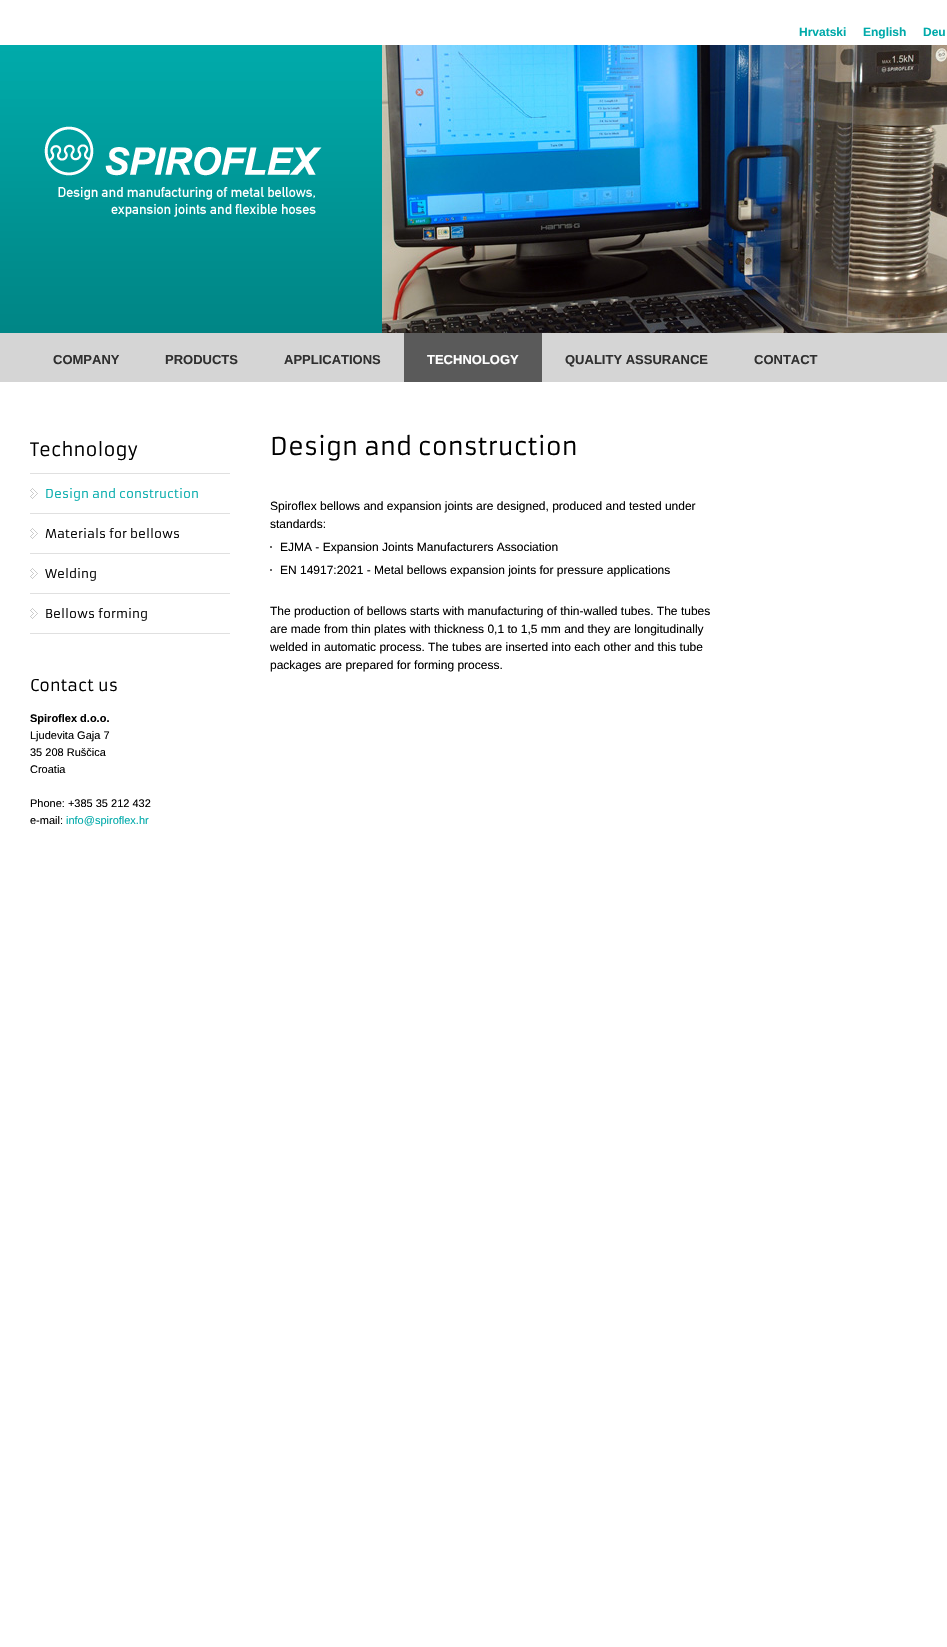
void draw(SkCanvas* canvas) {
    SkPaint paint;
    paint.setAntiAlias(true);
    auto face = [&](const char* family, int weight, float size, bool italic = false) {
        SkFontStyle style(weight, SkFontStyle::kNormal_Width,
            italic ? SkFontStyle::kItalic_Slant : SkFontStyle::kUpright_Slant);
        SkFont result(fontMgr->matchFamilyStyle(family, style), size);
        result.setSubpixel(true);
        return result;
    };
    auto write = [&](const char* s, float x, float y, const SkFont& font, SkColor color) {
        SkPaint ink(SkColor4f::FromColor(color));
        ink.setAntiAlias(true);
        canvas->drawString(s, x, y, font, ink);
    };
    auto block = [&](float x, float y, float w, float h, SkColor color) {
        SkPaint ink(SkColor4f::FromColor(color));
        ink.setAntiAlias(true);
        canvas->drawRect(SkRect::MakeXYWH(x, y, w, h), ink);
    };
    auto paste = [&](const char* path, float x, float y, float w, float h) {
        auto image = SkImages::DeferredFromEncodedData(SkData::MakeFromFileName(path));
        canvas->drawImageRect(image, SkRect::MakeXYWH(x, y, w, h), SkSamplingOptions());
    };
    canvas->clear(SK_ColorWHITE);
    paste("pic1.png", 0, 45, 947, 337);
    auto kFont1 = face("Liberation Sans", 700, 12);
    write("Hrvatski", 799, 36, kFont1, SkColorSetRGB(0, 170, 170));
    write("English", 863, 36, kFont1, SkColorSetRGB(0, 170, 170));
    write("Deu", 923, 36, kFont1, SkColorSetRGB(0, 170, 170));
    paste("pic2.png", 44, 126, 278, 91);
    paste("pic3.png", 382, 45, 565, 288);
    auto kFont2 = face("Liberation Sans", 700, 13);
    write("COMPANY", 53, 364, kFont2, SkColorSetRGB(48, 48, 48));
    write("PRODUCTS", 165, 364, kFont2, SkColorSetRGB(48, 48, 48));
    write("APPLICATIONS", 284, 364, kFont2, SkColorSetRGB(48, 48, 48));
    block(404, 333, 138, 49, SkColorSetRGB(90, 90, 90));
    write("TECHNOLOGY", 427, 364, kFont2, SK_ColorWHITE);
    write("QUALITY ASSURANCE", 565, 364, kFont2, SkColorSetRGB(48, 48, 48));
    write("CONTACT", 754, 364, kFont2, SkColorSetRGB(48, 48, 48));
    auto kFont3 = face("Armata", 400, 18);
    write("Technology", 30, 456, kFont3, SK_ColorBLACK);
    block(30, 473, 200, 1, SkColorSetRGB(224, 224, 224));
    paste("pic4.png", 30, 488, 8, 11);
    auto kFont4 = face("Armata", 400, 12);
    write("Design and construction", 45, 498, kFont4, SkColorSetRGB(0, 170, 170));
    block(30, 513, 200, 1, SkColorSetRGB(224, 224, 224));
    paste("pic4.png", 30, 528, 8, 11);
    write("Materials for bellows", 45, 538, kFont4, SK_ColorBLACK);
    block(30, 553, 200, 1, SkColorSetRGB(224, 224, 224));
    paste("pic4.png", 30, 568, 8, 11);
    write("Welding", 45, 578, kFont4, SK_ColorBLACK);
    block(30, 593, 200, 1, SkColorSetRGB(224, 224, 224));
    paste("pic4.png", 30, 608, 8, 11);
    write("Bellows forming", 45, 618, kFont4, SK_ColorBLACK);
    block(30, 633, 200, 1, SkColorSetRGB(224, 224, 224));
    auto kFont5 = face("Armata", 400, 16);
    write("Contact us", 30, 691, kFont5, SK_ColorBLACK);
    auto kFont6 = face("Liberation Sans", 700, 11);
    write("Spiroflex d.o.o.", 30, 722, kFont6, SK_ColorBLACK);
    auto kFont7 = face("Liberation Sans", 400, 11);
    write("Ljudevita Gaja 7", 30, 739, kFont7, SK_ColorBLACK);
    write("35 208 Ruščica", 30, 756, kFont7, SK_ColorBLACK);
    write("Croatia", 30, 773, kFont7, SK_ColorBLACK);
    write("Phone: +385 35 212 432", 30, 807, kFont7, SK_ColorBLACK);
    write("e-mail:", 30, 824, kFont7, SK_ColorBLACK);
    write("info@spiroflex.hr", 66, 824, kFont7, SkColorSetRGB(0, 170, 170));
    auto kFont8 = face("Armata", 400, 24);
    write("Design and construction", 270, 455, kFont8, SK_ColorBLACK);
    auto kFont9 = face("Liberation Sans", 400, 12);
    write("Spiroflex bellows and expansion joints are designed, produced and tested under", 270, 510, kFont9, SK_ColorBLACK);
    write("standards:", 270, 528, kFont9, SK_ColorBLACK);
    block(270, 546, 2, 2, SkColorSetRGB(101, 101, 101));
    write("EJMA - Expansion Joints Manufacturers Association", 280, 551, kFont9, SK_ColorBLACK);
    block(270, 569, 2, 2, SkColorSetRGB(101, 101, 101));
    write("EN 14917:2021 - Metal bellows expansion joints for pressure applications", 280, 574, kFont9, SK_ColorBLACK);
    write("The production of bellows starts with manufacturing of thin-walled tubes. The tubes", 270, 615, kFont9, SK_ColorBLACK);
    write("are made from thin plates with thickness 0,1 to 1,5 mm and they are longitudinally", 270, 633, kFont9, SK_ColorBLACK);
    write("welded in automatic process. The tubes are inserted into each other and this tube", 270, 651, kFont9, SK_ColorBLACK);
    write("packages are prepared for forming process.", 270, 669, kFont9, SK_ColorBLACK);
}
